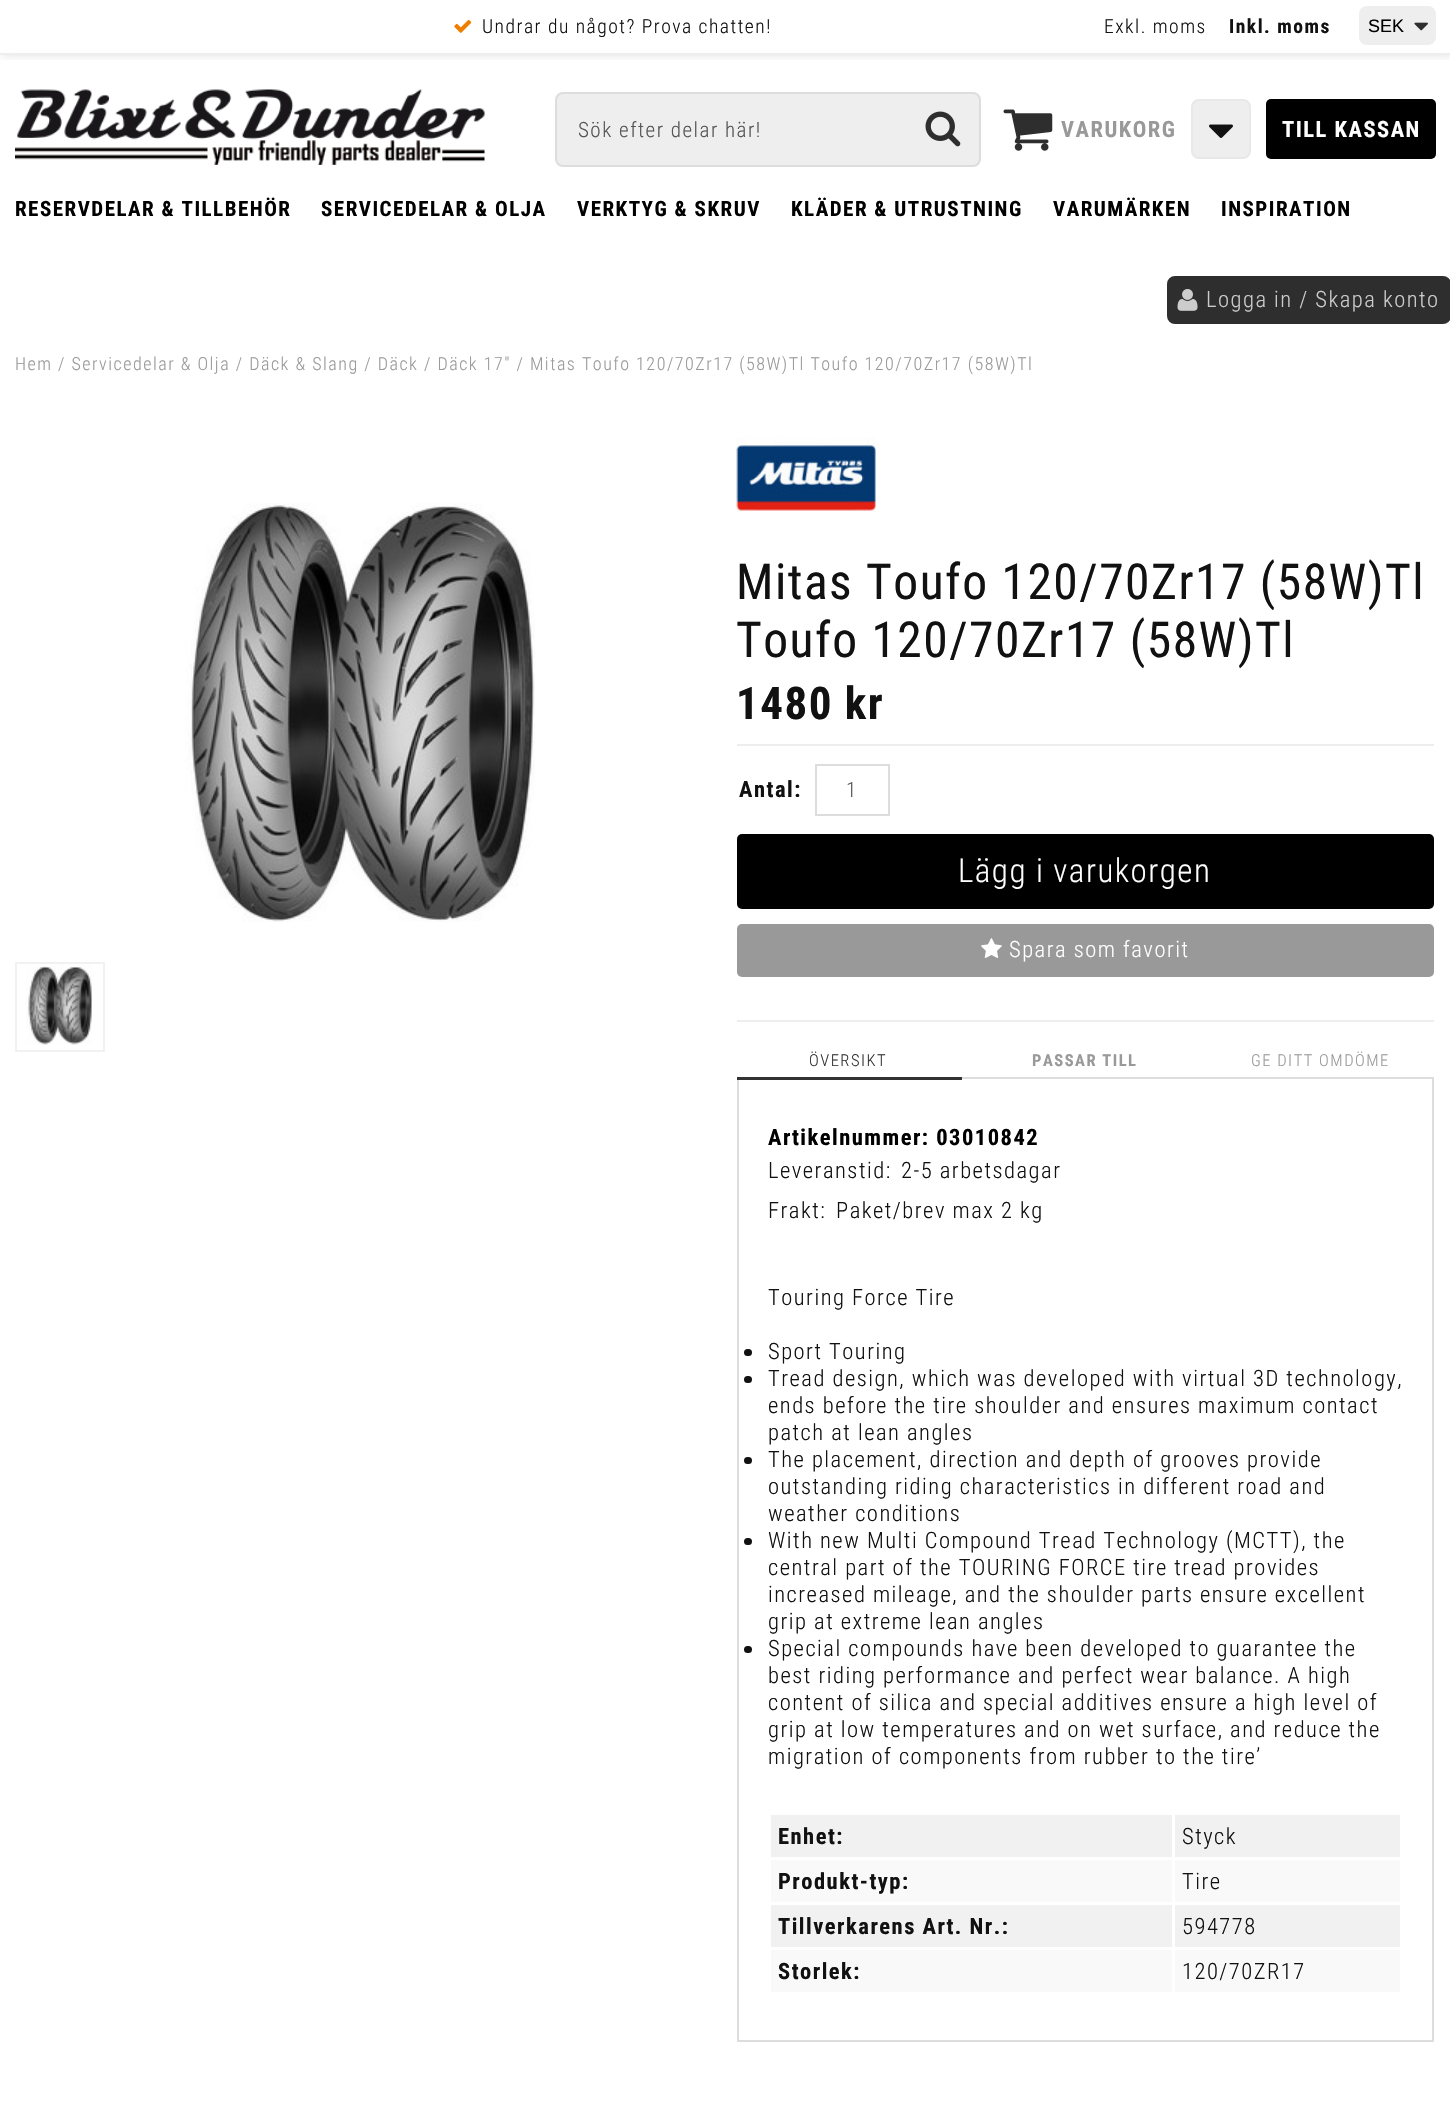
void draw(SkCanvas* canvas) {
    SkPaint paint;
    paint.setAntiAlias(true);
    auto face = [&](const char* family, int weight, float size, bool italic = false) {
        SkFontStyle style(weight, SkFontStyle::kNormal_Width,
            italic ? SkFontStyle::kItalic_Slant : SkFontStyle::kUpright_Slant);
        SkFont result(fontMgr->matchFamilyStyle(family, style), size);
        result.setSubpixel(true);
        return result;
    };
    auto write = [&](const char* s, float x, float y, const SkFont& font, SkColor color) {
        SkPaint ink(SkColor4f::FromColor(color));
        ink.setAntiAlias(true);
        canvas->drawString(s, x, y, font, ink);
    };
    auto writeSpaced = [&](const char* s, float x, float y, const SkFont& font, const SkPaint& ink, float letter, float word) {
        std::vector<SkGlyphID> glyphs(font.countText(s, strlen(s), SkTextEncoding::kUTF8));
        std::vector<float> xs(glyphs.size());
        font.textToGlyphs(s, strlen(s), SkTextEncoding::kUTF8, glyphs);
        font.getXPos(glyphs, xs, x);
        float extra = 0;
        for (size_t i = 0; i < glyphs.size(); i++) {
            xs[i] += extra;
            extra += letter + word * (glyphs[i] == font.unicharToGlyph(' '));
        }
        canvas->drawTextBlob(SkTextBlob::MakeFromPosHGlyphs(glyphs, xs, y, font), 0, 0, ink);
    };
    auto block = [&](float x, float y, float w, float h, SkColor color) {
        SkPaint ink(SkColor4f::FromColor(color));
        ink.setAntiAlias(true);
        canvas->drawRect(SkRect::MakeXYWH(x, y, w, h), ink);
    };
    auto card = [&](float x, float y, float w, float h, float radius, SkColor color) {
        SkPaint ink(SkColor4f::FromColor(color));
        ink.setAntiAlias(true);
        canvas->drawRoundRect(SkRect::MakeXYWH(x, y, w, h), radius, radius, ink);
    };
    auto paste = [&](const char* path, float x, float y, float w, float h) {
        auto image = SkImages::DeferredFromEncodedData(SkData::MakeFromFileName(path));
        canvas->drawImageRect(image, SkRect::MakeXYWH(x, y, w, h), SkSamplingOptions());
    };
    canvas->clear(SK_ColorWHITE);
    canvas->save();
    canvas->clipRect(SkRect::MakeXYWH(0, 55, 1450, 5));
    paint.setColor(SkColorSetARGB(26, 0, 0, 0));
    paint.setMaskFilter(SkMaskFilter::MakeBlur(kNormal_SkBlurStyle, 4.5f));
    canvas->drawRect(SkRect::MakeXYWH(2, 2, 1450, 54), paint);
    paint.setMaskFilter(nullptr);
    canvas->restore();
    block(0, 53, 1450, 2, SkColorSetRGB(238, 238, 238));
    paste("pic1.png", 454, 19, 18, 14);
    auto kFont1 = face("Roboto Condensed", 300, 19.5f);
    paint.setColor(SkColorSetRGB(17, 17, 17));
    writeSpaced("Undrar du något? Prova chatten!", 482, 33, kFont1, paint, 1.5f, 0);
    writeSpaced("Exkl. moms", 1104, 33, kFont1, paint, 1.5f, 0);
    auto kFont2 = face("Roboto Condensed", 700, 19.5f);
    writeSpaced("Inkl. moms", 1229, 33, kFont2, paint, 1.5f, 0);
    card(1359, 6, 77, 39, 8, SkColorSetRGB(238, 238, 238));
    paste("pic2.png", 1414, 22, 14, 9);
    auto kFont3 = face("Liberation Sans", 400, 18);
    write("SEK", 1368, 32, kFont3, SK_ColorBLACK);
    paste("pic3.png", 15, 89, 470, 76);
    paint.setColor(SkColorSetRGB(238, 238, 238));
    canvas->drawRoundRect(SkRect::MakeXYWH(556, 93, 424, 73), 7, 7, paint);
    paint.setStyle(SkPaint::kStroke_Style);
    paint.setStrokeWidth(2);
    paint.setColor(SkColorSetRGB(221, 221, 221));
    canvas->drawRoundRect(SkRect::MakeXYWH(556, 93, 424, 73), 7, 7, paint);
    auto kFont4 = face("Roboto Condensed", 300, 21);
    paint.setStyle(SkPaint::kFill_Style);
    paint.setColor(SkColorSetRGB(85, 85, 85));
    writeSpaced("Sök efter delar här!", 578, 137, kFont4, paint, 1.5f, 0);
    paste("pic4.png", 925, 111, 36, 36);
    paste("pic5.png", 1003, 109, 50, 42);
    auto kFont5 = face("Roboto Condensed", 700, 22.5f);
    paint.setColor(SkColorSetRGB(153, 153, 153));
    writeSpaced("VARUKORG", 1061, 137, kFont5, paint, 1.5f, 0);
    paint.setColor(SkColorSetRGB(238, 238, 238));
    canvas->drawRoundRect(SkRect::MakeXYWH(1192, 100, 58, 58), 7, 7, paint);
    paint.setStyle(SkPaint::kStroke_Style);
    paint.setColor(SkColorSetRGB(232, 232, 232));
    canvas->drawRoundRect(SkRect::MakeXYWH(1192, 100, 58, 58), 7, 7, paint);
    paste("pic6.png", 1209, 124, 24, 14);
    card(1266, 99, 170, 60, 5, SK_ColorBLACK);
    paint.setStyle(SkPaint::kFill_Style);
    paint.setColor(SK_ColorWHITE);
    writeSpaced("TILL KASSAN", 1282, 137, kFont5, paint, 1.5f, 0);
    auto kFont6 = face("Roboto Condensed", 700, 21);
    paint.setColor(SK_ColorBLACK);
    writeSpaced("RESERVDELAR & TILLBEHÖR", 15, 216, kFont6, paint, 1.5f, 0);
    writeSpaced("SERVICEDELAR & OLJA", 321, 216, kFont6, paint, 1.5f, 0);
    writeSpaced("VERKTYG & SKRUV", 577, 216, kFont6, paint, 1.5f, 0);
    writeSpaced("KLÄDER & UTRUSTNING", 791, 216, kFont6, paint, 1.5f, 0);
    writeSpaced("VARUMÄRKEN", 1053, 216, kFont6, paint, 1.5f, 0);
    writeSpaced("INSPIRATION", 1221, 216, kFont6, paint, 1.5f, 0);
    card(1167, 276, 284, 48, 8, SkColorSetRGB(46, 46, 46));
    paste("pic7.png", 1177, 289, 21, 22);
    auto kFont7 = face("Roboto Condensed", 300, 22.5f);
    paint.setColor(SkColorSetRGB(204, 204, 204));
    writeSpaced("Logga in / Skapa konto", 1206, 307, kFont7, paint, 1.5f, 0);
    auto kFont8 = face("Roboto Condensed", 300, 18);
    paint.setColor(SkColorSetRGB(153, 153, 153));
    writeSpaced("Hem / Servicedelar & Olja / Däck & Slang / Däck / Däck 17\" / Mitas Toufo 120/70Zr17 (58W)Tl Toufo 120/70Zr17 (58W)Tl", 15, 370, kFont8, paint, 1.5f, 0);
    paste("pic8.png", 185, 503, 350, 419);
    paint.setStyle(SkPaint::kStroke_Style);
    paint.setColor(SkColorSetRGB(241, 241, 241));
    canvas->drawRect(SkRect::MakeXYWH(16, 963, 88, 88), paint);
    paste("pic9.png", 26, 964, 66, 81);
    paste("pic10.png", 736, 437, 140, 75);
    auto kFont9 = face("Roboto Condensed", 400, 49.5f);
    paint.setStyle(SkPaint::kFill_Style);
    paint.setColor(SkColorSetRGB(17, 17, 17));
    writeSpaced("Mitas Toufo 120/70Zr17 (58W)Tl", 736, 599, kFont9, paint, 1.5f, 0);
    writeSpaced("Toufo 120/70Zr17 (58W)Tl", 736, 657, kFont9, paint, 1.5f, 0);
    auto kFont10 = face("Roboto Condensed", 700, 45);
    writeSpaced("1480 kr", 736, 719, kFont10, paint, 1.5f, 0);
    block(737, 744, 697, 2, SkColorSetRGB(238, 238, 238));
    writeSpaced("Antal:", 739, 797, kFont5, paint, 1.5f, 0);
    paint.setStyle(SkPaint::kStroke_Style);
    paint.setColor(SkColorSetRGB(221, 221, 221));
    canvas->drawRect(SkRect::MakeXYWH(816, 765, 73, 50), paint);
    paint.setStyle(SkPaint::kFill_Style);
    paint.setColor(SkColorSetRGB(85, 85, 85));
    writeSpaced("1", 846, 797, kFont4, paint, 1.5f, 0);
    card(737, 834, 697, 75, 5, SK_ColorBLACK);
    auto kFont11 = face("Roboto Condensed", 300, 33);
    paint.setColor(SK_ColorWHITE);
    writeSpaced("Lägg i varukorgen", 958, 882, kFont11, paint, 1.5f, 0);
    card(737, 924, 697, 53, 5, SkColorSetRGB(153, 153, 153));
    paste("pic11.png", 981, 938, 21, 20);
    writeSpaced("Spara som favorit", 1009, 957, kFont7, paint, 1.5f, 0);
    block(737, 1020, 697, 2, SkColorSetRGB(238, 238, 238));
    paint.setStyle(SkPaint::kStroke_Style);
    paint.setColor(SkColorSetRGB(221, 221, 221));
    canvas->drawRect(SkRect::MakeXYWH(738, 1078, 695, 963), paint);
    paint.setStyle(SkPaint::kFill_Style);
    paint.setColor(SkColorSetRGB(51, 51, 51));
    canvas->drawPath(SkPathBuilder().moveTo(737, 1077).lineTo(737, 1080).lineTo(962, 1080).lineTo(962, 1046).lineTo(962, 1077).close().detach(), paint);
    auto kFont12 = face("Roboto Condensed", 300, 16.5f);
    writeSpaced("ÖVERSIKT", 809, 1066, kFont12, paint, 1.5f, 0);
    auto kFont13 = face("Roboto Condensed", 700, 16.5f);
    paint.setColor(SkColorSetRGB(153, 153, 153));
    writeSpaced("PASSAR TILL", 1032, 1066, kFont13, paint, 1.5f, 0);
    writeSpaced("GE DITT OMDÖME", 1251, 1066, kFont12, paint, 1.5f, 0);
    paint.setColor(SK_ColorBLACK);
    writeSpaced("Artikelnummer: 03010842", 768, 1145, kFont5, paint, 1.5f, 0);
    paint.setColor(SkColorSetRGB(17, 17, 17));
    writeSpaced("Leveranstid:", 768, 1178, kFont7, paint, 1.5f, 0);
    writeSpaced("2-5 arbetsdagar", 901, 1178, kFont7, paint, 1.5f, 0);
    writeSpaced("Frakt:", 768, 1218, kFont7, paint, 1.5f, 0);
    writeSpaced("Paket/brev max 2 kg", 836, 1218, kFont7, paint, 1.5f, 0);
    writeSpaced("Touring Force Tire", 768, 1305, kFont7, paint, 1.5f, 0);
    card(744, 1349, 8, 7, 3.5f, SkColorSetRGB(17, 17, 17));
    writeSpaced("Sport Touring", 768, 1359, kFont7, paint, 1.5f, 0);
    card(744, 1376, 8, 7, 3.5f, SkColorSetRGB(17, 17, 17));
    writeSpaced("Tread design, which was developed with virtual 3D technology,", 768, 1386, kFont7, paint, 1.5f, 0);
    writeSpaced("ends before the tire shoulder and ensures maximum contact", 768, 1413, kFont7, paint, 1.5f, 0);
    writeSpaced("patch at lean angles", 768, 1440, kFont7, paint, 1.5f, 0);
    card(744, 1457, 8, 7, 3.5f, SkColorSetRGB(17, 17, 17));
    writeSpaced("The placement, direction and depth of grooves provide", 768, 1467, kFont7, paint, 1.5f, 0);
    writeSpaced("outstanding riding characteristics in different road and", 768, 1494, kFont7, paint, 1.5f, 0);
    writeSpaced("weather conditions", 768, 1521, kFont7, paint, 1.5f, 0);
    card(744, 1538, 8, 7, 3.5f, SkColorSetRGB(17, 17, 17));
    writeSpaced("With new Multi Compound Tread Technology (MCTT), the", 768, 1548, kFont7, paint, 1.5f, 0);
    writeSpaced("central part of the TOURING FORCE tire tread provides", 768, 1575, kFont7, paint, 1.5f, 0);
    writeSpaced("increased mileage, and the shoulder parts ensure excellent", 768, 1602, kFont7, paint, 1.5f, 0);
    writeSpaced("grip at extreme lean angles", 768, 1629, kFont7, paint, 1.5f, 0);
    card(744, 1646, 8, 7, 3.5f, SkColorSetRGB(17, 17, 17));
    writeSpaced("Special compounds have been developed to guarantee the", 768, 1656, kFont7, paint, 1.5f, 0);
    writeSpaced("best riding performance and perfect wear balance. A high", 768, 1683, kFont7, paint, 1.5f, 0);
    writeSpaced("content of silica and special additives ensure a high level of", 768, 1710, kFont7, paint, 1.5f, 0);
    writeSpaced("grip at low temperatures and on wet surface, and reduce the", 768, 1737, kFont7, paint, 1.5f, 0);
    writeSpaced("migration of components from rubber to the tire’", 768, 1764, kFont7, paint, 1.5f, 0);
    block(771, 1815, 401, 42, SkColorSetRGB(241, 241, 241));
    writeSpaced("Enhet:", 778, 1844, kFont5, paint, 1.5f, 0);
    block(1175, 1815, 225, 42, SkColorSetRGB(241, 241, 241));
    writeSpaced("Styck", 1182, 1844, kFont7, paint, 1.5f, 0);
    block(771, 1860, 401, 42, SkColorSetRGB(249, 249, 249));
    writeSpaced("Produkt-typ:", 778, 1889, kFont5, paint, 1.5f, 0);
    block(1175, 1860, 225, 42, SkColorSetRGB(249, 249, 249));
    writeSpaced("Tire", 1182, 1889, kFont7, paint, 1.5f, 0);
    block(771, 1905, 401, 42, SkColorSetRGB(241, 241, 241));
    writeSpaced("Tillverkarens Art. Nr.:", 778, 1934, kFont5, paint, 1.5f, 0);
    block(1175, 1905, 225, 42, SkColorSetRGB(241, 241, 241));
    writeSpaced("594778", 1182, 1934, kFont7, paint, 1.5f, 0);
    block(771, 1950, 401, 42, SkColorSetRGB(249, 249, 249));
    writeSpaced("Storlek:", 778, 1979, kFont5, paint, 1.5f, 0);
    block(1175, 1950, 225, 42, SkColorSetRGB(249, 249, 249));
    writeSpaced("120/70ZR17", 1182, 1979, kFont7, paint, 1.5f, 0);
}
